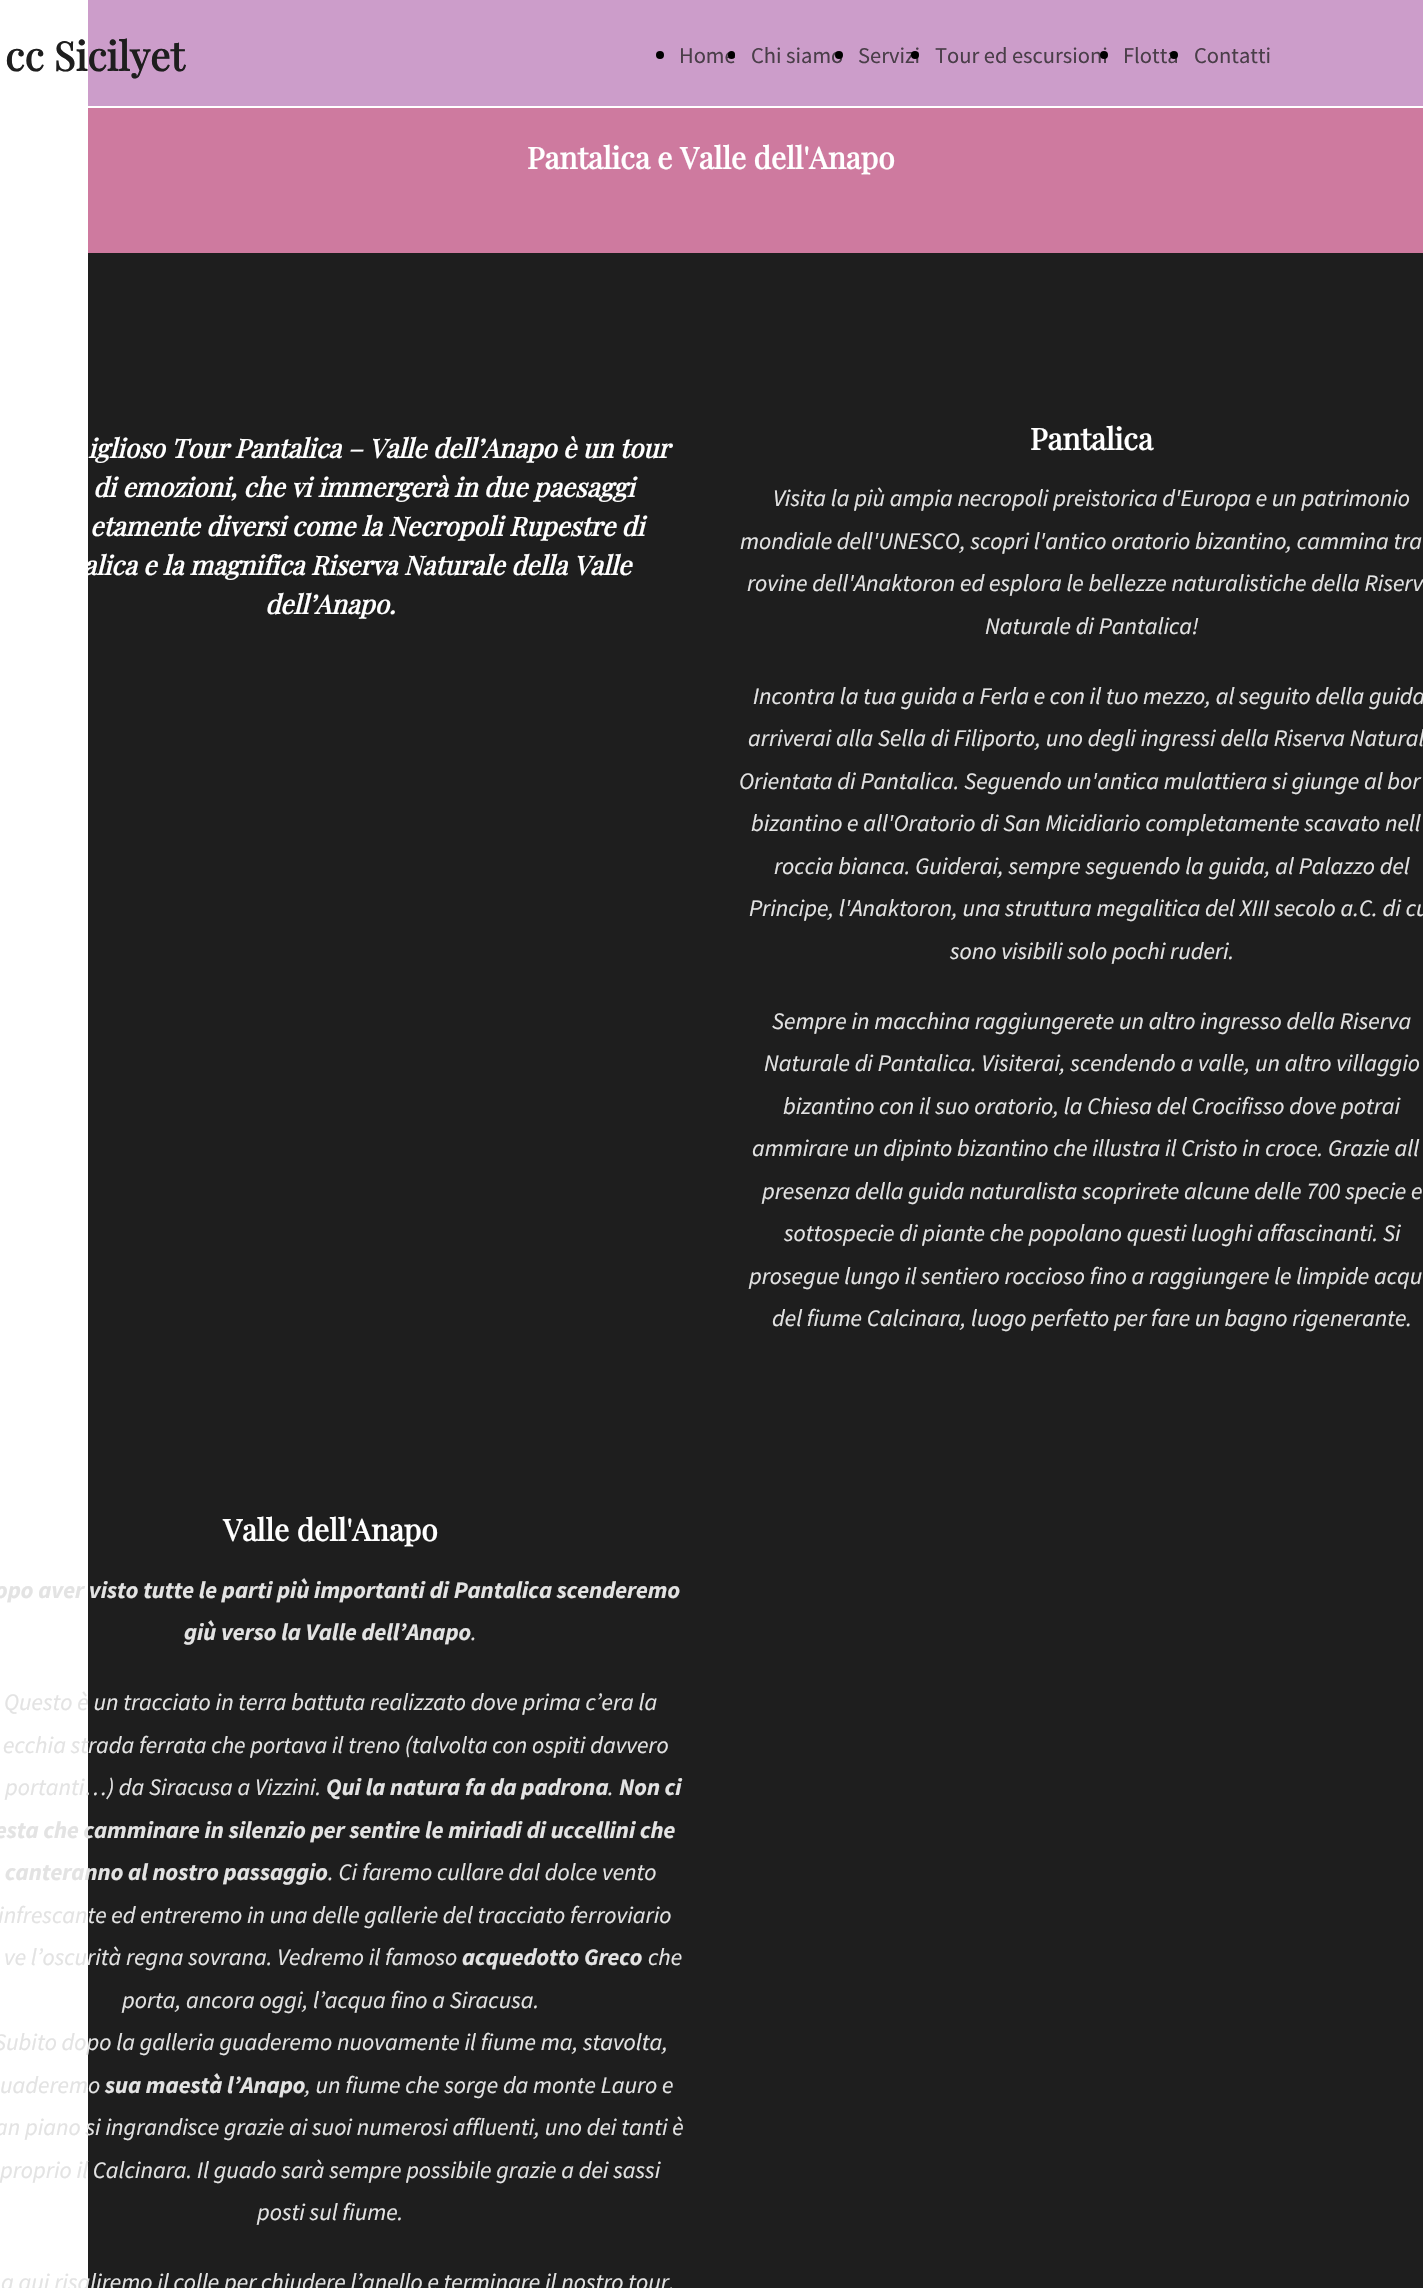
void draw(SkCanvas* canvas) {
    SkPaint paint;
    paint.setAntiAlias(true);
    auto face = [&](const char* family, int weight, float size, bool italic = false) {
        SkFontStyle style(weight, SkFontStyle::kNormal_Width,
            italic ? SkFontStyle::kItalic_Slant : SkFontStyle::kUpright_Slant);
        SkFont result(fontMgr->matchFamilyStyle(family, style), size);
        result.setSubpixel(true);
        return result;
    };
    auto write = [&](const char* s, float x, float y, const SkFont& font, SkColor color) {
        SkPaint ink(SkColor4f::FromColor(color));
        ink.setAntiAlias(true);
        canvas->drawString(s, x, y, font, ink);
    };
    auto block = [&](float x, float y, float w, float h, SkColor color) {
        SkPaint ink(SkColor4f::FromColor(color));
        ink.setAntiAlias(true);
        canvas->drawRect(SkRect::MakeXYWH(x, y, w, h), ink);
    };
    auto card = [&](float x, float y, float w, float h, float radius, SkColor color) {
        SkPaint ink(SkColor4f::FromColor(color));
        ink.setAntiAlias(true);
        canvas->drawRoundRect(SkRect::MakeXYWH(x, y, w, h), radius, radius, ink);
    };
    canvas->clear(SK_ColorWHITE);
    block(88, 0, 1335, 106, SkColorSetRGB(204, 157, 202));
    auto kFont1 = face("Playfair Display", 700, 40);
    write("cc Sicilyet", 5, 71, kFont1, SkColorSetRGB(30, 30, 30));
    paint.setColor(SK_ColorBLACK);
    canvas->drawCircle(660, 55, 4, paint);
    auto kFont2 = face("Source Sans Pro", 400, 22.5f);
    write("Home", 679, 63, kFont2, SkColorSetRGB(74, 62, 73));
    card(728, 51, 7, 8, 3.5f, SK_ColorBLACK);
    write("Chi siamo", 751, 63, kFont2, SkColorSetRGB(74, 62, 73));
    canvas->drawCircle(839, 55, 4, paint);
    write("Servizi", 858, 63, kFont2, SkColorSetRGB(74, 62, 73));
    canvas->drawCircle(915, 55, 4, paint);
    write("Tour ed escursioni", 935, 63, kFont2, SkColorSetRGB(74, 62, 73));
    canvas->drawCircle(1104, 55, 4, paint);
    write("Flotta", 1123, 63, kFont2, SkColorSetRGB(74, 62, 73));
    canvas->drawCircle(1174, 55, 4, paint);
    write("Contatti", 1194, 63, kFont2, SkColorSetRGB(74, 62, 73));
    block(88, 108, 1335, 145, SkColorSetRGB(206, 122, 159));
    auto kFont3 = face("Playfair Display", 700, 30);
    write("Pantalica e Valle dell'Anapo", 527, 169, kFont3, SK_ColorWHITE);
    block(88, 253, 1335, 2035, SkColorSetRGB(30, 30, 30));
    auto kFont4 = face("Playfair Display", 700, 26, true);
    write("iglioso Tour Pantalica – Valle dell’Anapo è un tour", 88, 458, kFont4, SK_ColorWHITE);
    write("di emozioni, che vi immergerà in due paesaggi", 93, 497, kFont4, SK_ColorWHITE);
    write("etamente diversi come la Necropoli Rupestre di", 90, 536, kFont4, SK_ColorWHITE);
    write("alica e la magnifica Riserva Naturale della Valle", 83, 575, kFont4, SK_ColorWHITE);
    write("dell’Anapo.", 265, 614, kFont4, SK_ColorWHITE);
    write("Pantalica", 1030, 450, kFont3, SK_ColorWHITE);
    auto kFont5 = face("Source Sans Pro", 400, 23.75f, true);
    write("Visita la più ampia necropoli preistorica d'Europa e un patrimonio", 773, 506, kFont5, SkColorSetRGB(227, 227, 227));
    write("mondiale dell'UNESCO, scopri l'antico oratorio bizantino, cammina tra", 740, 549, kFont5, SkColorSetRGB(227, 227, 227));
    write("rovine dell'Anaktoron ed esplora le bellezze naturalistiche della Riserv", 747, 591, kFont5, SkColorSetRGB(227, 227, 227));
    write("Naturale di Pantalica!", 985, 634, kFont5, SkColorSetRGB(227, 227, 227));
    write("Incontra la tua guida a Ferla e con il tuo mezzo, al seguito della guida", 753, 704, kFont5, SkColorSetRGB(227, 227, 227));
    write("arriverai alla Sella di Filiporto, uno degli ingressi della Riserva Natural", 748, 746, kFont5, SkColorSetRGB(227, 227, 227));
    write("Orientata di Pantalica. Seguendo un'antica mulattiera si giunge al bor", 739, 789, kFont5, SkColorSetRGB(227, 227, 227));
    write("bizantino e all'Oratorio di San Micidiario completamente scavato nell", 751, 831, kFont5, SkColorSetRGB(227, 227, 227));
    write("roccia bianca. Guiderai, sempre seguendo la guida, al Palazzo del", 774, 874, kFont5, SkColorSetRGB(227, 227, 227));
    write("Principe, l'Anaktoron, una struttura megalitica del XIII secolo a.C. di cu", 749, 916, kFont5, SkColorSetRGB(227, 227, 227));
    write("sono visibili solo pochi ruderi.", 950, 959, kFont5, SkColorSetRGB(227, 227, 227));
    write("Sempre in macchina raggiungerete un altro ingresso della Riserva", 772, 1029, kFont5, SkColorSetRGB(227, 227, 227));
    write("Naturale di Pantalica. Visiterai, scendendo a valle, un altro villaggio", 764, 1071, kFont5, SkColorSetRGB(227, 227, 227));
    write("bizantino con il suo oratorio, la Chiesa del Crocifisso dove potrai", 783, 1114, kFont5, SkColorSetRGB(227, 227, 227));
    write("ammirare un dipinto bizantino che illustra il Cristo in croce. Grazie all", 752, 1156, kFont5, SkColorSetRGB(227, 227, 227));
    write("presenza della guida naturalista scoprirete alcune delle 700 specie e", 762, 1199, kFont5, SkColorSetRGB(227, 227, 227));
    write("sottospecie di piante che popolano questi luoghi affascinanti. Si", 784, 1241, kFont5, SkColorSetRGB(227, 227, 227));
    write("prosegue lungo il sentiero roccioso fino a raggiungere le limpide acqu", 749, 1284, kFont5, SkColorSetRGB(227, 227, 227));
    write("del fiume Calcinara, luogo perfetto per fare un bagno rigenerante.", 772, 1326, kFont5, SkColorSetRGB(227, 227, 227));
    write("Valle dell'Anapo", 223, 1541, kFont3, SK_ColorWHITE);
    auto kFont6 = face("Source Sans Pro", 700, 23.75f, true);
    write("opo aver visto tutte le parti più importanti di Pantalica scenderemo", -5, 1598, kFont6, SkColorSetRGB(227, 227, 227));
    write("giù verso la Valle dell’Anapo", 184, 1640, kFont6, SkColorSetRGB(227, 227, 227));
    write(".", 471, 1640, kFont5, SkColorSetRGB(227, 227, 227));
    write("Questo è un tracciato in terra battuta realizzato dove prima c’era la", 4, 1710, kFont5, SkColorSetRGB(227, 227, 227));
    write("ecchia strada ferrata che portava il treno (talvolta con ospiti davvero", 3, 1753, kFont5, SkColorSetRGB(227, 227, 227));
    write("portanti…) da Siracusa a Vizzini.", 5, 1795, kFont5, SkColorSetRGB(227, 227, 227));
    write("Qui la natura fa da padrona", 326, 1795, kFont6, SkColorSetRGB(227, 227, 227));
    write(".", 608, 1795, kFont5, SkColorSetRGB(227, 227, 227));
    write("Non ci", 619, 1795, kFont6, SkColorSetRGB(227, 227, 227));
    write("esta che camminare in silenzio per sentire le miriadi di uccellini che", -5, 1838, kFont6, SkColorSetRGB(227, 227, 227));
    write("canteranno al nostro passaggio", 5, 1880, kFont6, SkColorSetRGB(227, 227, 227));
    write(". Ci faremo cullare dal dolce vento", 328, 1880, kFont5, SkColorSetRGB(227, 227, 227));
    write("infrescante ed entreremo in una delle gallerie del tracciato ferroviario", -2, 1923, kFont5, SkColorSetRGB(227, 227, 227));
    write("ve l’oscurità regna sovrana. Vedremo il famoso", 4, 1965, kFont5, SkColorSetRGB(227, 227, 227));
    write("acquedotto Greco", 462, 1965, kFont6, SkColorSetRGB(227, 227, 227));
    write("che", 648, 1965, kFont5, SkColorSetRGB(227, 227, 227));
    write("porta, ancora oggi, l’acqua fino a Siracusa.", 122, 2008, kFont5, SkColorSetRGB(227, 227, 227));
    write("Subito dopo la galleria guaderemo nuovamente il fiume ma, stavolta,", -6, 2050, kFont5, SkColorSetRGB(227, 227, 227));
    write("uaderemo", 0, 2093, kFont5, SkColorSetRGB(227, 227, 227));
    write("sua maestà l’Anapo", 105, 2093, kFont6, SkColorSetRGB(227, 227, 227));
    write(", un fiume che sorge da monte Lauro e", 305, 2093, kFont5, SkColorSetRGB(227, 227, 227));
    write("an piano si ingrandisce grazie ai suoi numerosi affluenti, uno dei tanti è", -5, 2135, kFont5, SkColorSetRGB(227, 227, 227));
    write("proprio il Calcinara. Il guado sarà sempre possibile grazie a dei sassi", 0, 2178, kFont5, SkColorSetRGB(227, 227, 227));
    write("posti sul fiume.", 257, 2220, kFont5, SkColorSetRGB(227, 227, 227));
    write("a qui risaliremo il colle per chiudere l’anello e terminare il nostro tour.", 1, 2290, kFont5, SkColorSetRGB(227, 227, 227));
}
